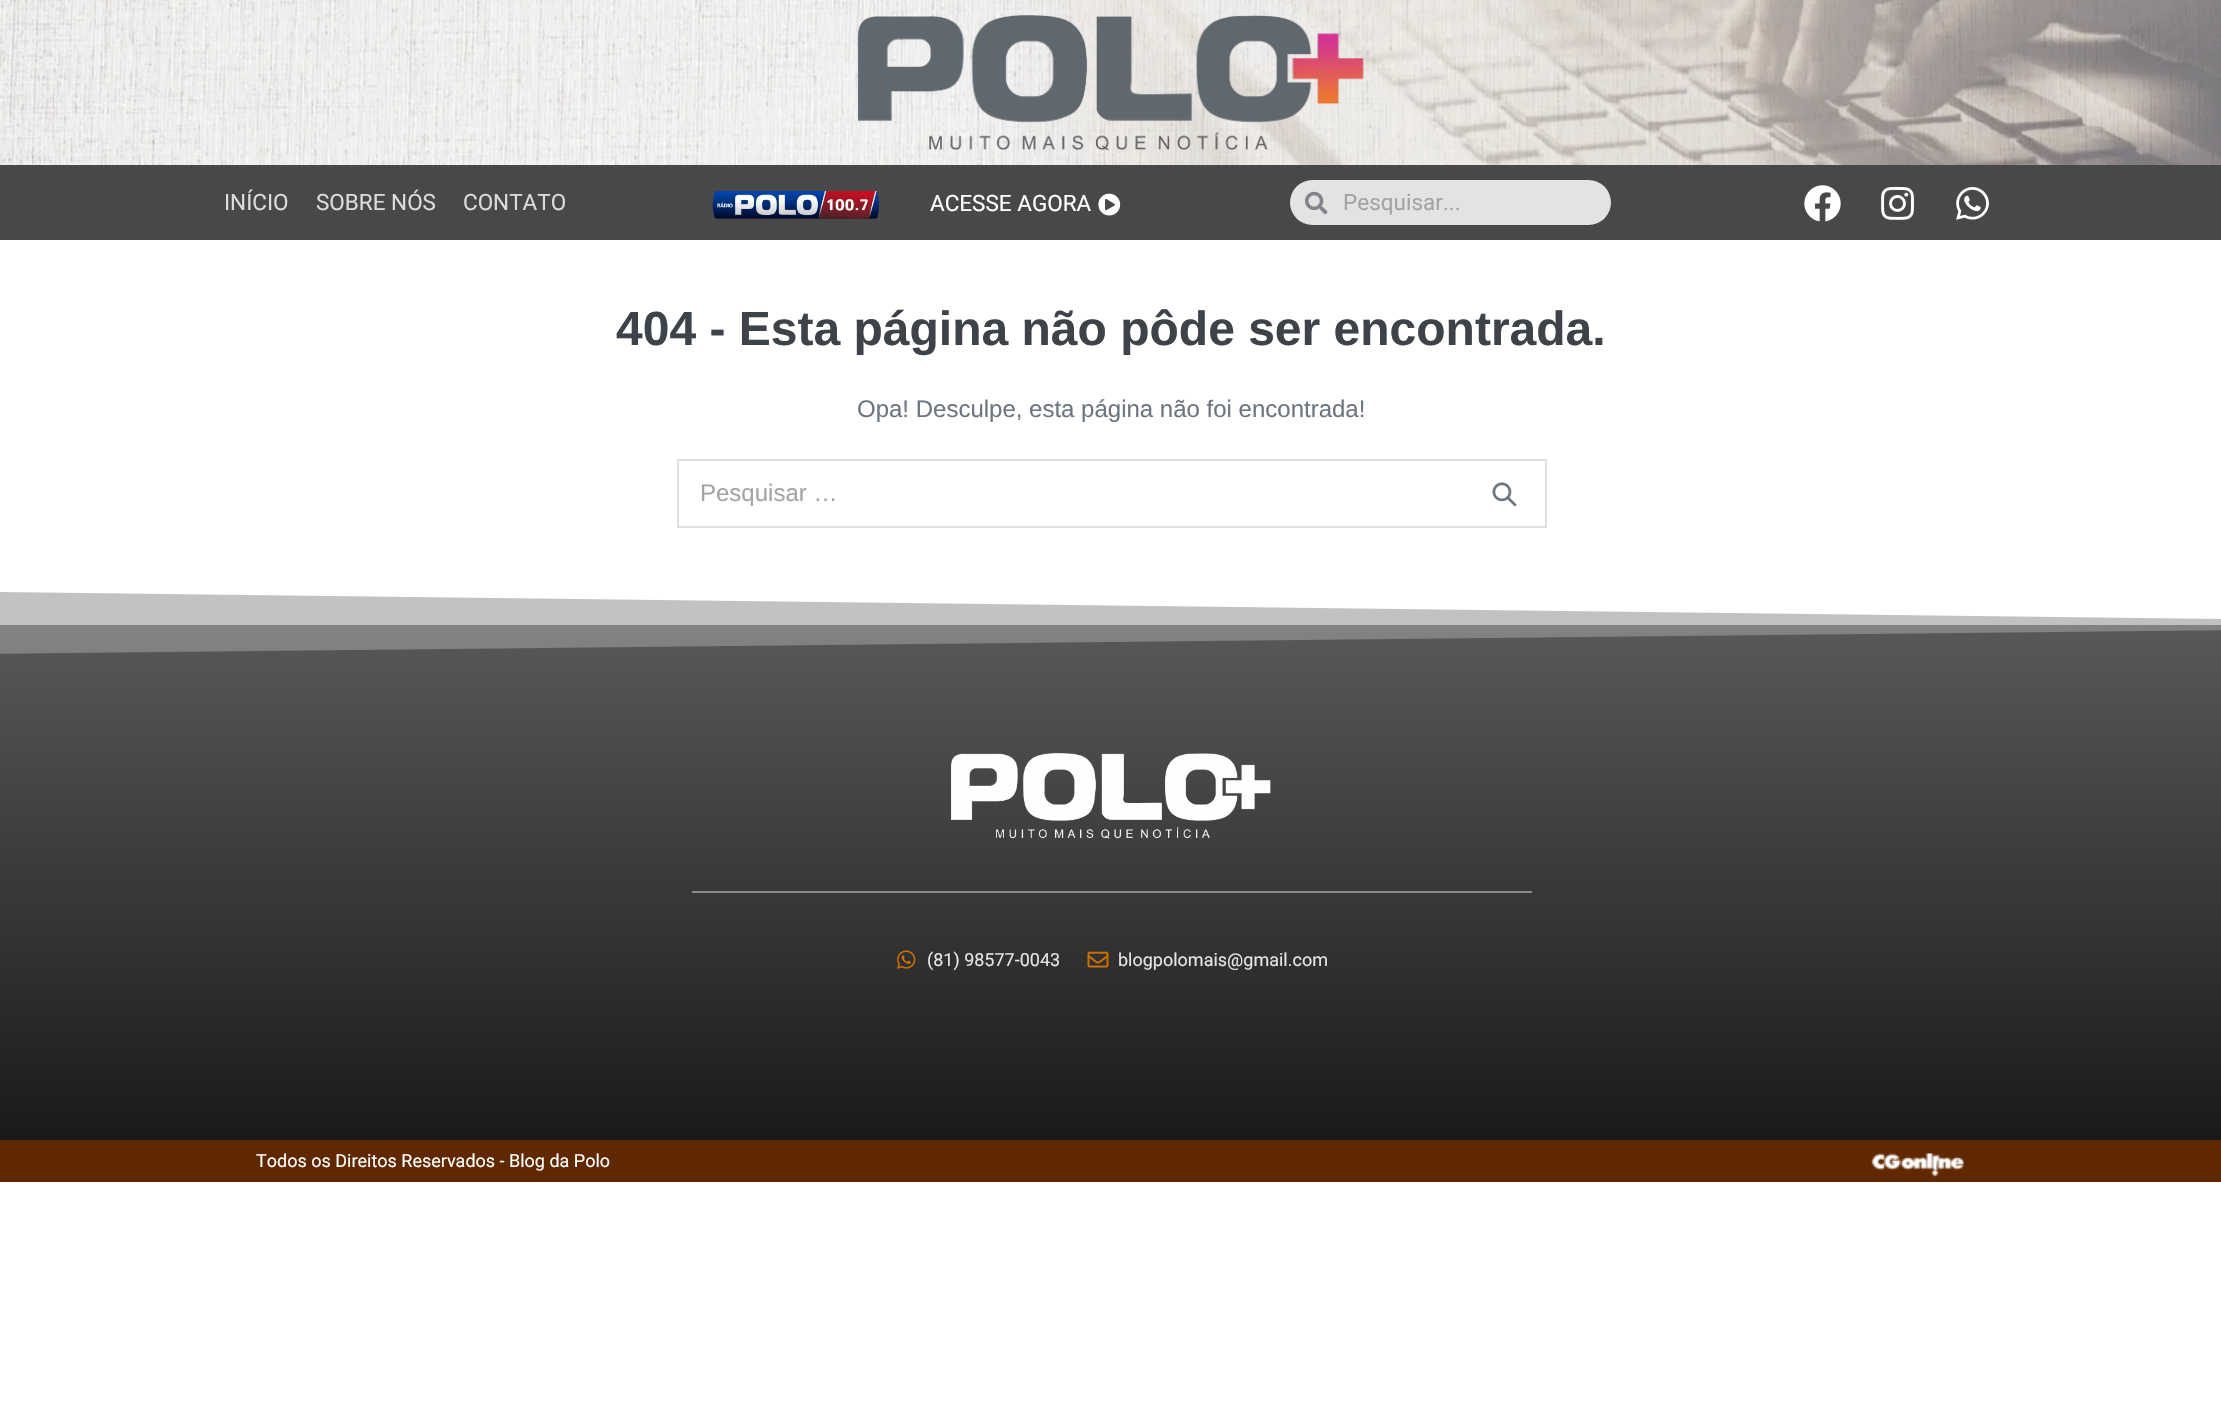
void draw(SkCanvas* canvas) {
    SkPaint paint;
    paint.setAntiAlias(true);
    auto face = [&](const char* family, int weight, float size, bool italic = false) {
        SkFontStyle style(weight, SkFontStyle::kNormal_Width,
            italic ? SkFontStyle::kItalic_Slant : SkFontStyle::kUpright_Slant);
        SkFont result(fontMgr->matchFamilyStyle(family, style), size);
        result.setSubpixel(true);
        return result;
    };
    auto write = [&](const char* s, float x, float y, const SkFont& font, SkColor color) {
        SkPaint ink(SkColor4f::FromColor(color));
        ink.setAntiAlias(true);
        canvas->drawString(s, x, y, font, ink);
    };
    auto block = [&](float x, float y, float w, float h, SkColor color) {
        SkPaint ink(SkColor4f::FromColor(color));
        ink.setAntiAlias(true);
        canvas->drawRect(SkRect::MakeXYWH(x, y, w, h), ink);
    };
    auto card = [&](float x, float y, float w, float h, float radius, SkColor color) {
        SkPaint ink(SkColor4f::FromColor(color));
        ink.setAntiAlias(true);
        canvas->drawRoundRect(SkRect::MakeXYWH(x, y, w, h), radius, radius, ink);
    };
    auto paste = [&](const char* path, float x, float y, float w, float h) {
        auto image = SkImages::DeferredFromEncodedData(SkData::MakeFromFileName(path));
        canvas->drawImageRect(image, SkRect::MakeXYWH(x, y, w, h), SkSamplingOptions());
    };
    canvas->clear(SK_ColorWHITE);
    paste("pic1.png", 0, 0, 2221, 165);
    paste("pic2.png", 858, 15, 506, 135);
    block(0, 165, 2221, 75, SkColorSetRGB(72, 72, 72));
    auto kFont1 = face("Roboto", 400, 22.5f);
    write("INÍCIO", 224, 210, kFont1, SkColorSetRGB(219, 219, 219));
    write("SOBRE NÓS", 316, 210, kFont1, SkColorSetRGB(219, 219, 219));
    write("CONTATO", 463, 210, kFont1, SkColorSetRGB(219, 219, 219));
    paste("pic3.png", 712, 190, 167, 29);
    write("ACESSE AGORA", 930, 211, kFont1, SK_ColorWHITE);
    paste("pic4.png", 1098, 193, 23, 23);
    card(1290, 180, 321, 45, 22.5f, SkColorSetRGB(227, 227, 227));
    paste("pic5.png", 1305, 191, 23, 24);
    write("Pesquisar...", 1343, 210, kFont1, SkColorSetRGB(164, 164, 164));
    paste("pic6.png", 1804, 185, 37, 37);
    paste("pic7.png", 1881, 186, 33, 34);
    paste("pic8.png", 1956, 187, 33, 33);
    auto kFont2 = face("Liberation Sans", 700, 48);
    write("404 - Esta página não pôde ser encontrada.", 616, 345, kFont2, SkColorSetRGB(62, 67, 73));
    auto kFont3 = face("Liberation Sans", 400, 24);
    write("Opa! Desculpe, esta página não foi encontrada!", 857, 417, kFont3, SkColorSetRGB(109, 118, 128));
    paint.setStyle(SkPaint::kStroke_Style);
    paint.setStrokeWidth(2);
    paint.setColor(SkColorSetRGB(222, 222, 229));
    canvas->drawRect(SkRect::MakeXYWH(678, 460, 868, 67), paint);
    write("Pesquisar …", 700, 501, kFont3, SkColorSetRGB(164, 164, 164));
    paste("pic9.png", 1492, 482, 25, 25);
    paint.setStyle(SkPaint::kFill_Style);
    {
        const SkColor colors[] = {SkColorSetRGB(93, 93, 93), SkColorSetRGB(26, 26, 26)};
        const float stops[] = {0, 1};
        const SkPoint ends[] = {{1111, 588}, {1111, 1140}};
        paint.setShader(SkGradientShader::MakeLinear(ends, colors, stops, 2, SkTileMode::kClamp));
        paint.setAlpha(255);
    }
    canvas->drawRect(SkRect::MakeXYWH(0, 625, 2221, 515), paint);
    {
        const SkColor colors[] = {SkColorSetRGB(174, 174, 174), SkColorSetRGB(141, 141, 141)};
        const float stops[] = {0, 1};
        const SkPoint ends[] = {{1111, 588}, {1111, 1140}};
        paint.setShader(SkGradientShader::MakeLinear(ends, colors, stops, 2, SkTileMode::kClamp));
        paint.setAlpha(255);
    }
    canvas->drawRect(SkRect::MakeXYWH(0, 591, 2221, 34), paint);
    canvas->save();
    canvas->clipRect(SkRect::MakeXYWH(0, 587, 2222, 73));
    paint.setShader(nullptr);
    paint.setColor(SK_ColorWHITE);
    canvas->drawPath(SkPathBuilder().moveTo(-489, 586).lineTo(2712, 586).lineTo(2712, 625).close().detach(), paint);
    paint.setColor(SkColorSetARGB(64, 255, 255, 255));
    canvas->drawPath(SkPathBuilder().moveTo(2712, 586).lineTo(-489, 586).lineTo(-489, 659).lineTo(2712, 625).close().detach(), paint);
    canvas->restore();
    paste("pic10.png", 951, 753, 320, 86);
    block(692, 891, 840, 2, SkColorSetRGB(139, 139, 139));
    paste("pic11.png", 897, 950, 19, 19);
    auto kFont4 = face("Roboto", 400, 18);
    write("(81) 98577-0043", 927, 966, kFont4, SkColorSetRGB(228, 228, 228));
    paste("pic12.png", 1087, 951, 22, 17);
    write("blogpolomais@gmail.com", 1118, 966, kFont4, SkColorSetRGB(228, 228, 228));
    block(0, 1140, 2221, 42, SkColorSetRGB(96, 40, 0));
    write("Todos os Direitos Reservados - Blog da Polo", 256, 1167, kFont4, SK_ColorWHITE);
    paste("pic13.png", 1871, 1153, 93, 24);
}
